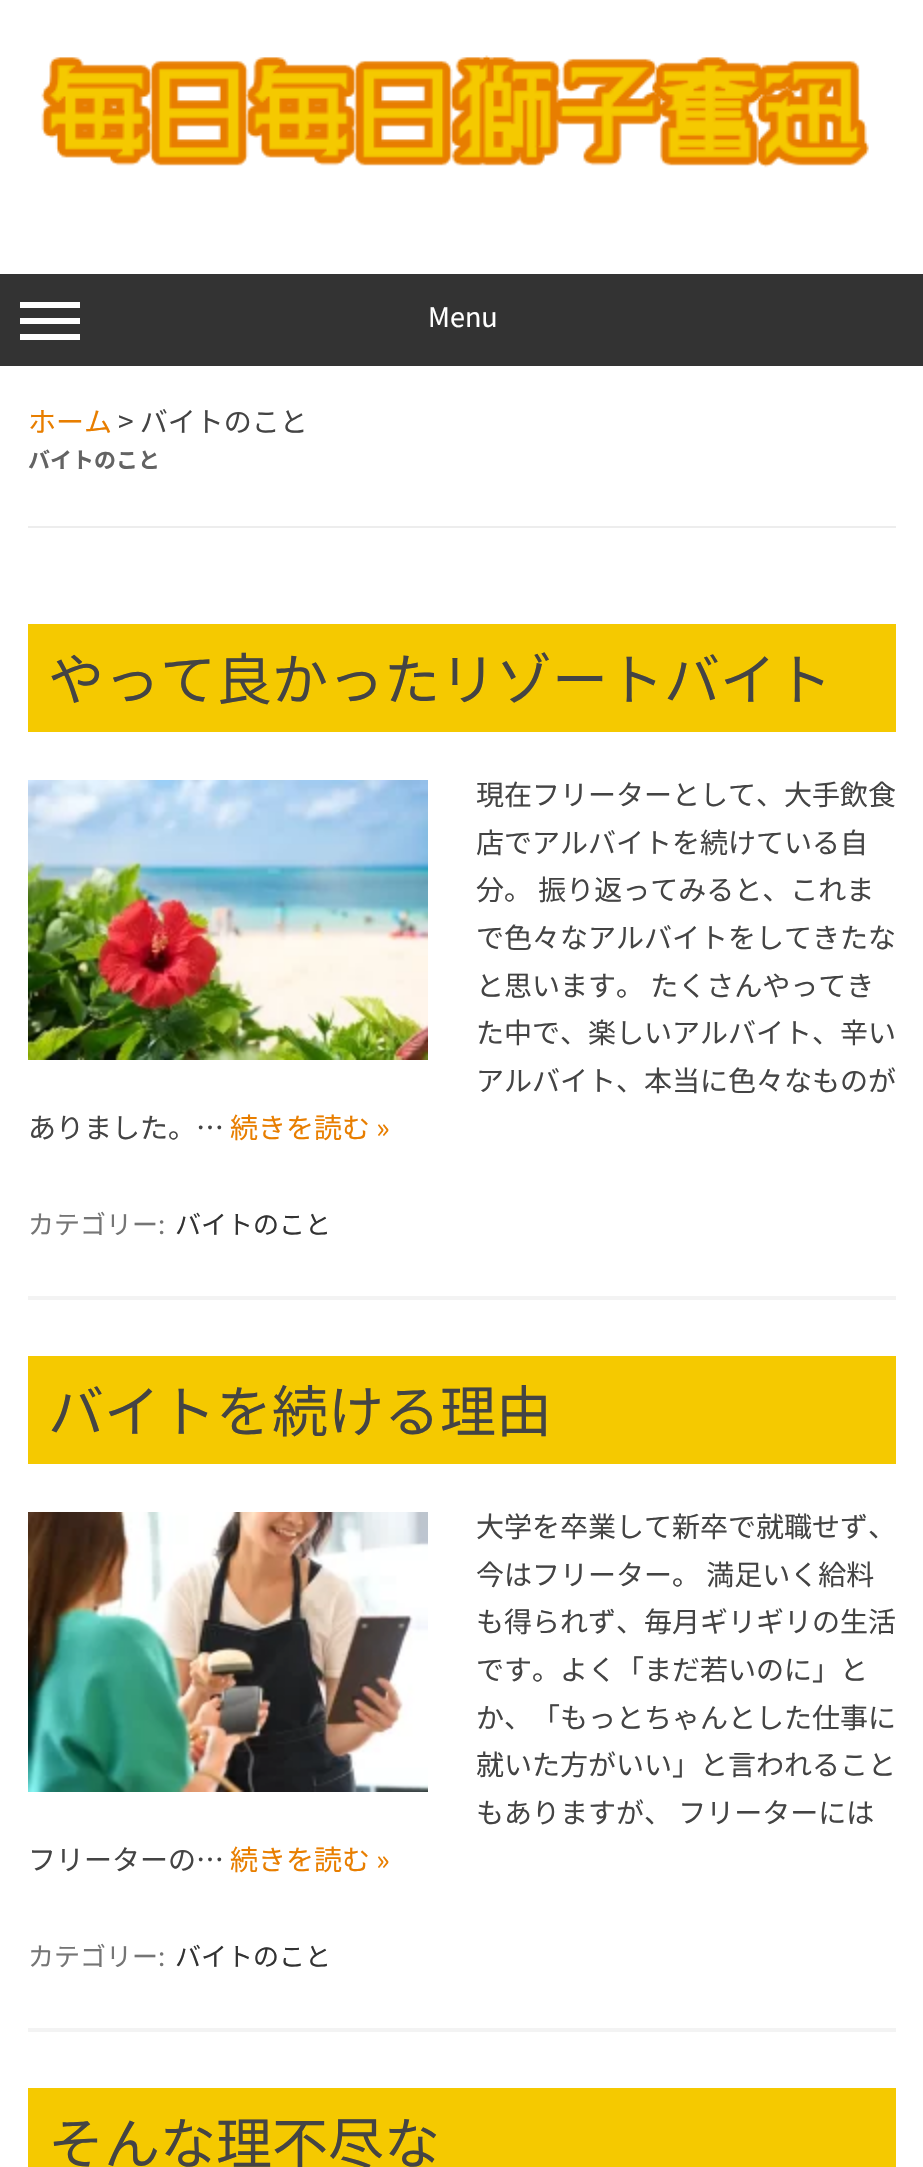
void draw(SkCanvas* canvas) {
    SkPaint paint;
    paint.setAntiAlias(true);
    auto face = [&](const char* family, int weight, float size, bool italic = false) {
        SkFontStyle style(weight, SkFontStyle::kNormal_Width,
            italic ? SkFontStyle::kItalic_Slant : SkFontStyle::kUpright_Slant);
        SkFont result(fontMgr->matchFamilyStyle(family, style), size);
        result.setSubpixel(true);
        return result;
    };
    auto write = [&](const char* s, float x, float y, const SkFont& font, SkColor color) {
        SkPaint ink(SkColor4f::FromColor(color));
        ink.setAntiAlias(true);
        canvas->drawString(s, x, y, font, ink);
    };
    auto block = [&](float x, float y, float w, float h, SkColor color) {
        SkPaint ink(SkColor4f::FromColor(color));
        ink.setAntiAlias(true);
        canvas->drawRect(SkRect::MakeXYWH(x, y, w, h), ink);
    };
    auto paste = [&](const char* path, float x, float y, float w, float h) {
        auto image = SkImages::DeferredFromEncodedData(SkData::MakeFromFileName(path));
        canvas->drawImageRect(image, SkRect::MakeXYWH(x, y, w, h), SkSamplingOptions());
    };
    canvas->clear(SK_ColorWHITE);
    paste("pic1.png", 41, 55, 828, 113);
    block(0, 274, 923, 92, SkColorSetRGB(51, 51, 51));
    block(20, 302, 60, 6, SK_ColorWHITE);
    block(20, 318, 60, 6, SK_ColorWHITE);
    block(20, 334, 60, 6, SK_ColorWHITE);
    auto kFont1 = face("Noto Sans JP", 400, 27);
    write("Menu", 428, 327, kFont1, SK_ColorWHITE);
    auto kFont2 = face("Noto Sans JP", 400, 28);
    write("ホーム", 28, 432, kFont2, SkColorSetRGB(232, 126, 0));
    write("> バイトのこと", 118, 432, kFont2, SkColorSetRGB(68, 68, 68));
    block(28, 526, 868, 2, SkColorSetRGB(237, 237, 237));
    auto kFont3 = face("Noto Sans JP", 700, 22);
    write("バイトのこと", 28, 468, kFont3, SkColorSetRGB(99, 99, 99));
    block(28, 1296, 868, 4, SkColorSetRGB(243, 243, 243));
    block(28, 624, 868, 108, SkColorSetRGB(245, 201, 0));
    auto kFont4 = face("Noto Sans JP", 400, 56);
    write("やって良かったリゾートバイト", 48, 700, kFont4, SkColorSetRGB(68, 68, 68));
    paste("pic2.png", 28, 780, 400, 280);
    write("現在フリーターとして、大手飲食", 476, 805, kFont2, SkColorSetRGB(68, 68, 68));
    write("店でアルバイトを続けている自", 476, 853, kFont2, SkColorSetRGB(68, 68, 68));
    write("分。 振り返ってみると、これま", 476, 900, kFont2, SkColorSetRGB(68, 68, 68));
    write("で色々なアルバイトをしてきたな", 476, 948, kFont2, SkColorSetRGB(68, 68, 68));
    write("と思います。 たくさんやってき", 476, 996, kFont2, SkColorSetRGB(68, 68, 68));
    write("た中で、楽しいアルバイト、辛い", 476, 1043, kFont2, SkColorSetRGB(68, 68, 68));
    write("アルバイト、本当に色々なものが", 476, 1091, kFont2, SkColorSetRGB(68, 68, 68));
    write("ありました。…", 28, 1138, kFont2, SkColorSetRGB(68, 68, 68));
    write("続きを読む »", 230, 1138, kFont2, SkColorSetRGB(232, 126, 0));
    auto kFont5 = face("Noto Sans JP", 400, 26);
    write("カテゴリー:", 28, 1234, kFont5, SkColorSetRGB(117, 117, 117));
    write("バイトのこと", 175, 1234, kFont5, SkColorSetRGB(51, 51, 51));
    block(28, 2028, 868, 4, SkColorSetRGB(243, 243, 243));
    block(28, 1356, 868, 108, SkColorSetRGB(245, 201, 0));
    write("バイトを続ける理由", 48, 1432, kFont4, SkColorSetRGB(68, 68, 68));
    paste("pic3.png", 28, 1512, 400, 280);
    write("大学を卒業して新卒で就職せず、", 476, 1537, kFont2, SkColorSetRGB(68, 68, 68));
    write("今はフリーター。 満足いく給料", 476, 1585, kFont2, SkColorSetRGB(68, 68, 68));
    write("も得られず、毎月ギリギリの生活", 476, 1632, kFont2, SkColorSetRGB(68, 68, 68));
    write("です。よく「まだ若いのに」と", 476, 1680, kFont2, SkColorSetRGB(68, 68, 68));
    write("か、「もっとちゃんとした仕事に", 476, 1728, kFont2, SkColorSetRGB(68, 68, 68));
    write("就いた方がいい」と言われること", 476, 1775, kFont2, SkColorSetRGB(68, 68, 68));
    write("もありますが、 フリーターには", 476, 1823, kFont2, SkColorSetRGB(68, 68, 68));
    write("フリーターの…", 28, 1870, kFont2, SkColorSetRGB(68, 68, 68));
    write("続きを読む »", 230, 1870, kFont2, SkColorSetRGB(232, 126, 0));
    write("カテゴリー:", 28, 1966, kFont5, SkColorSetRGB(117, 117, 117));
    write("バイトのこと", 175, 1966, kFont5, SkColorSetRGB(51, 51, 51));
    block(28, 2088, 868, 79, SkColorSetRGB(245, 201, 0));
    write("そんな理不尽な", 48, 2164, kFont4, SkColorSetRGB(68, 68, 68));
}
